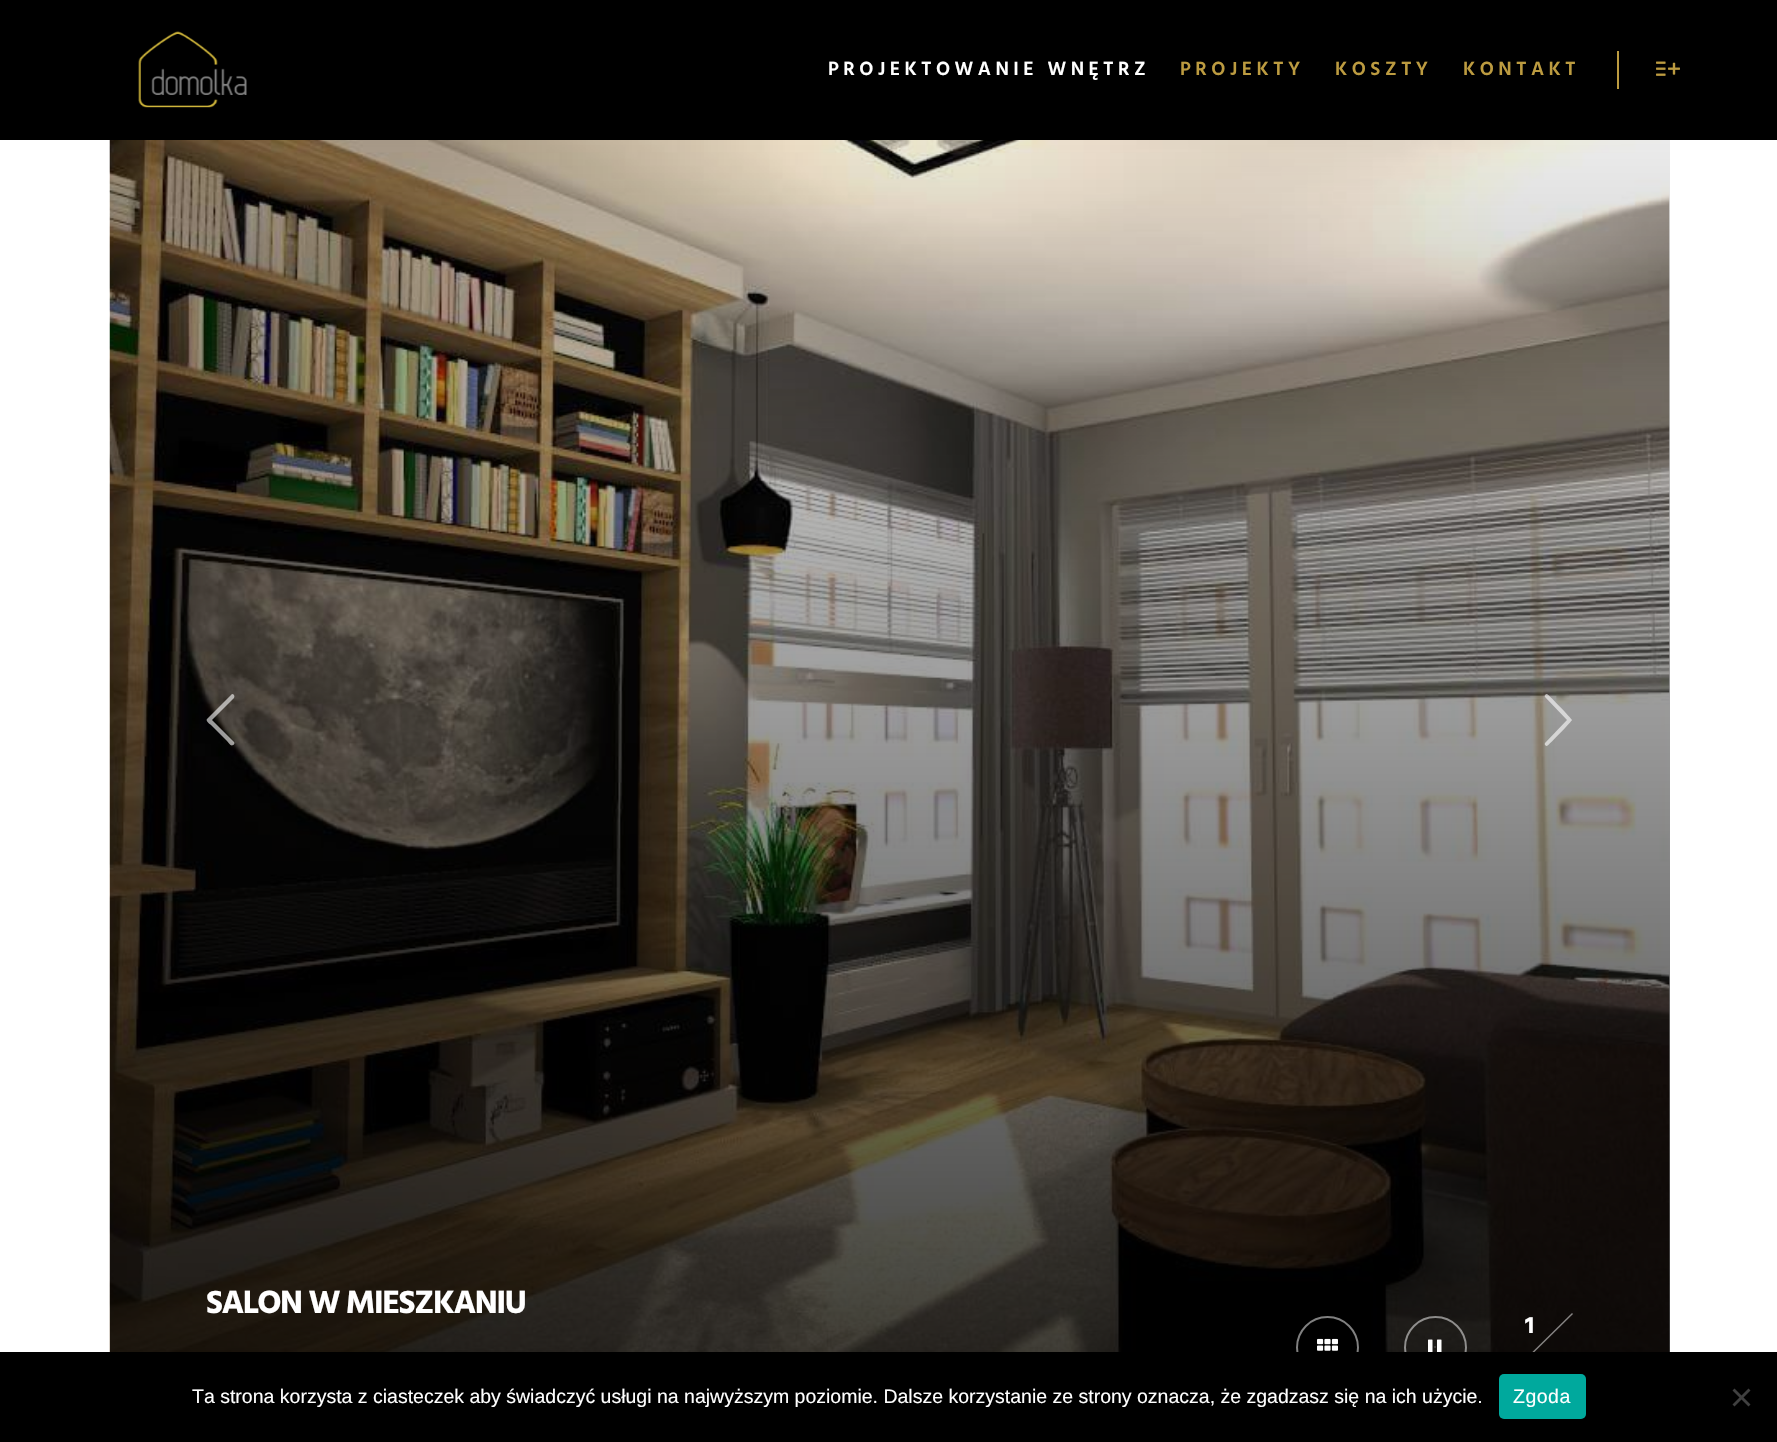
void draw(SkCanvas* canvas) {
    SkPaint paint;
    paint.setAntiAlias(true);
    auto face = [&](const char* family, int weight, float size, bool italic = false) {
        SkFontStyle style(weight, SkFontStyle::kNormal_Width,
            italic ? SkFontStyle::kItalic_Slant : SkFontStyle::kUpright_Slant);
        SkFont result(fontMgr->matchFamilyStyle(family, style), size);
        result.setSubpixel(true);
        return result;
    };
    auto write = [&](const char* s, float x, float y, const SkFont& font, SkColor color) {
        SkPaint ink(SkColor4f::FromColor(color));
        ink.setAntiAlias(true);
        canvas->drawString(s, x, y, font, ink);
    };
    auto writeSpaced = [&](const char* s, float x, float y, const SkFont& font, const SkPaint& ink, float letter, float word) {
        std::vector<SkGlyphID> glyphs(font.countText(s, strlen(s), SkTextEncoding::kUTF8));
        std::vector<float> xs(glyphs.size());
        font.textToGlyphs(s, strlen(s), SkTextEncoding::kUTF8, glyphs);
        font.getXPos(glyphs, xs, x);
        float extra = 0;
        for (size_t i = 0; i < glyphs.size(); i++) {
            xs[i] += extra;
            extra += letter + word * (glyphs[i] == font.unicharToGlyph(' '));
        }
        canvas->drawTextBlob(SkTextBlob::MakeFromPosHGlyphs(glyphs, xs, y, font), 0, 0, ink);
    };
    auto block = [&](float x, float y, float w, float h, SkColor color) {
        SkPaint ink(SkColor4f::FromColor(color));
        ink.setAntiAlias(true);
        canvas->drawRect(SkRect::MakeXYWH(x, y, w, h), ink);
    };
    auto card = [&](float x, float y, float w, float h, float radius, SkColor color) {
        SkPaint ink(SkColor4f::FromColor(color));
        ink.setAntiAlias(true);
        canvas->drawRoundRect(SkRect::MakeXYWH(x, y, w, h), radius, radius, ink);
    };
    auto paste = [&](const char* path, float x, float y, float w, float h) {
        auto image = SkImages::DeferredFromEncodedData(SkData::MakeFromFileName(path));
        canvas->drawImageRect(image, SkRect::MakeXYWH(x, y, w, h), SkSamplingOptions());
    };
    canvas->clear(SK_ColorWHITE);
    block(0, 0, 1777, 140, SK_ColorBLACK);
    paste("pic1.png", 138, 31, 109, 77);
    auto kFont1 = face("Hind", 600, 19.5f);
    paint.setColor(SK_ColorWHITE);
    writeSpaced("PROJEKTOWANIE WNĘTRZ", 828, 75, kFont1, paint, 4.5f, 0);
    paint.setColor(SkColorSetRGB(188, 155, 64));
    writeSpaced("PROJEKTY", 1180, 75, kFont1, paint, 4.5f, 0);
    writeSpaced("KOSZTY", 1335, 75, kFont1, paint, 4.5f, 0);
    writeSpaced("KONTAKT", 1463, 75, kFont1, paint, 4.5f, 0);
    block(1617, 51, 2, 38, SkColorSetRGB(188, 155, 64));
    paste("pic2.png", 1656, 61, 24, 15);
    paste("pic3.png", 109, 140, 1561, 1212);
    {
        const SkColor colors[] = {SkColorSetARGB(0, 0, 0, 0), SkColorSetARGB(204, 0, 0, 0)};
        const float stops[] = {0, 1};
        const SkPoint ends[] = {{889, 0}, {890, 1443}};
        paint.setShader(SkGradientShader::MakeLinear(ends, colors, stops, 2, SkTileMode::kClamp));
        paint.setAlpha(255);
    }
    canvas->drawRect(SkRect::MakeXYWH(110, 140, 1560, 1212), paint);
    paint.setShader(nullptr);
    paint.setColor(SkColorSetARGB(153, 255, 255, 255));
    canvas->drawPath(SkPathBuilder().moveTo(234, 742).cubicTo(235, 743, 234, 745, 233, 745).cubicTo(231, 747, 228, 742, 227, 741).lineTo(211, 725).cubicTo(211, 725, 205, 721, 207, 719).lineTo(231, 695).lineTo(232, 694).cubicTo(234, 694, 235, 696, 234, 698).lineTo(212, 720).close().detach(), paint);
    canvas->drawPath(SkPathBuilder().moveTo(1567, 720).lineTo(1545, 697).cubicTo(1544, 695, 1546, 694, 1547, 694).cubicTo(1549, 695, 1572, 719, 1572, 720).cubicTo(1572, 721, 1549, 745, 1547, 746).cubicTo(1546, 746, 1544, 745, 1545, 743).close().detach(), paint);
    auto kFont2 = face("Hind", 700, 33);
    paint.setColor(SK_ColorWHITE);
    writeSpaced("SALON W MIESZKANIU", 206, 1313, kFont2, paint, -1.5f, 0);
    paint.setStyle(SkPaint::kStroke_Style);
    paint.setStrokeWidth(2);
    paint.setColor(SkColorSetRGB(128, 128, 128));
    canvas->drawCircle(1327.5f, 1347.5f, 30.5f, paint);
    paste("pic4.png", 1317, 1338, 21, 13);
    paint.setColor(SkColorSetARGB(128, 255, 255, 255));
    canvas->drawCircle(1435.5f, 1347.5f, 30.5f, paint);
    paste("pic5.png", 1428, 1339, 14, 13);
    paint.setStyle(SkPaint::kFill_Style);
    paint.setColor(SkColorSetRGB(73, 72, 70));
    canvas->drawCircle(1435, 1347, 1, paint);
    auto kFont3 = face("Hind", 700, 24);
    write("1", 1525, 1333, kFont3, SK_ColorWHITE);
    paint.setColor(SkColorSetARGB(128, 255, 255, 255));
    canvas->drawPath(SkPathBuilder().moveTo(1511, 1373).lineTo(1572, 1313).lineTo(1573, 1314).lineTo(1512, 1374).close().detach(), paint);
    block(0, 1352, 1777, 90, SK_ColorBLACK);
    auto kFont4 = face("Liberation Sans", 400, 19.5f);
    write("Ta strona korzysta z ciasteczek aby świadczyć usługi na najwyższym poziomie. Dalsze korzystanie ze strony oznacza, że zgadzasz się na ich użycie.", 192, 1403, kFont4, SK_ColorWHITE);
    card(1499, 1374, 87, 45, 5, SkColorSetRGB(0, 169, 157));
    paint.setColor(SK_ColorWHITE);
    writeSpaced("Zgoda", 1513, 1403, kFont4, paint, 0.5f, 0);
    paint.setColor(SkColorSetRGB(64, 64, 64));
    canvas->drawPath(SkPathBuilder().moveTo(1748.5f, 1388.5f).lineTo(1750.5f, 1390.5f).lineTo(1734.5f, 1406.5f).lineTo(1732.5f, 1404.5f).close().detach(), paint);
    canvas->drawPath(SkPathBuilder().moveTo(1732.5f, 1390.5f).lineTo(1734.5f, 1388.5f).lineTo(1750.5f, 1404.5f).lineTo(1748.5f, 1406.5f).close().detach(), paint);
}
